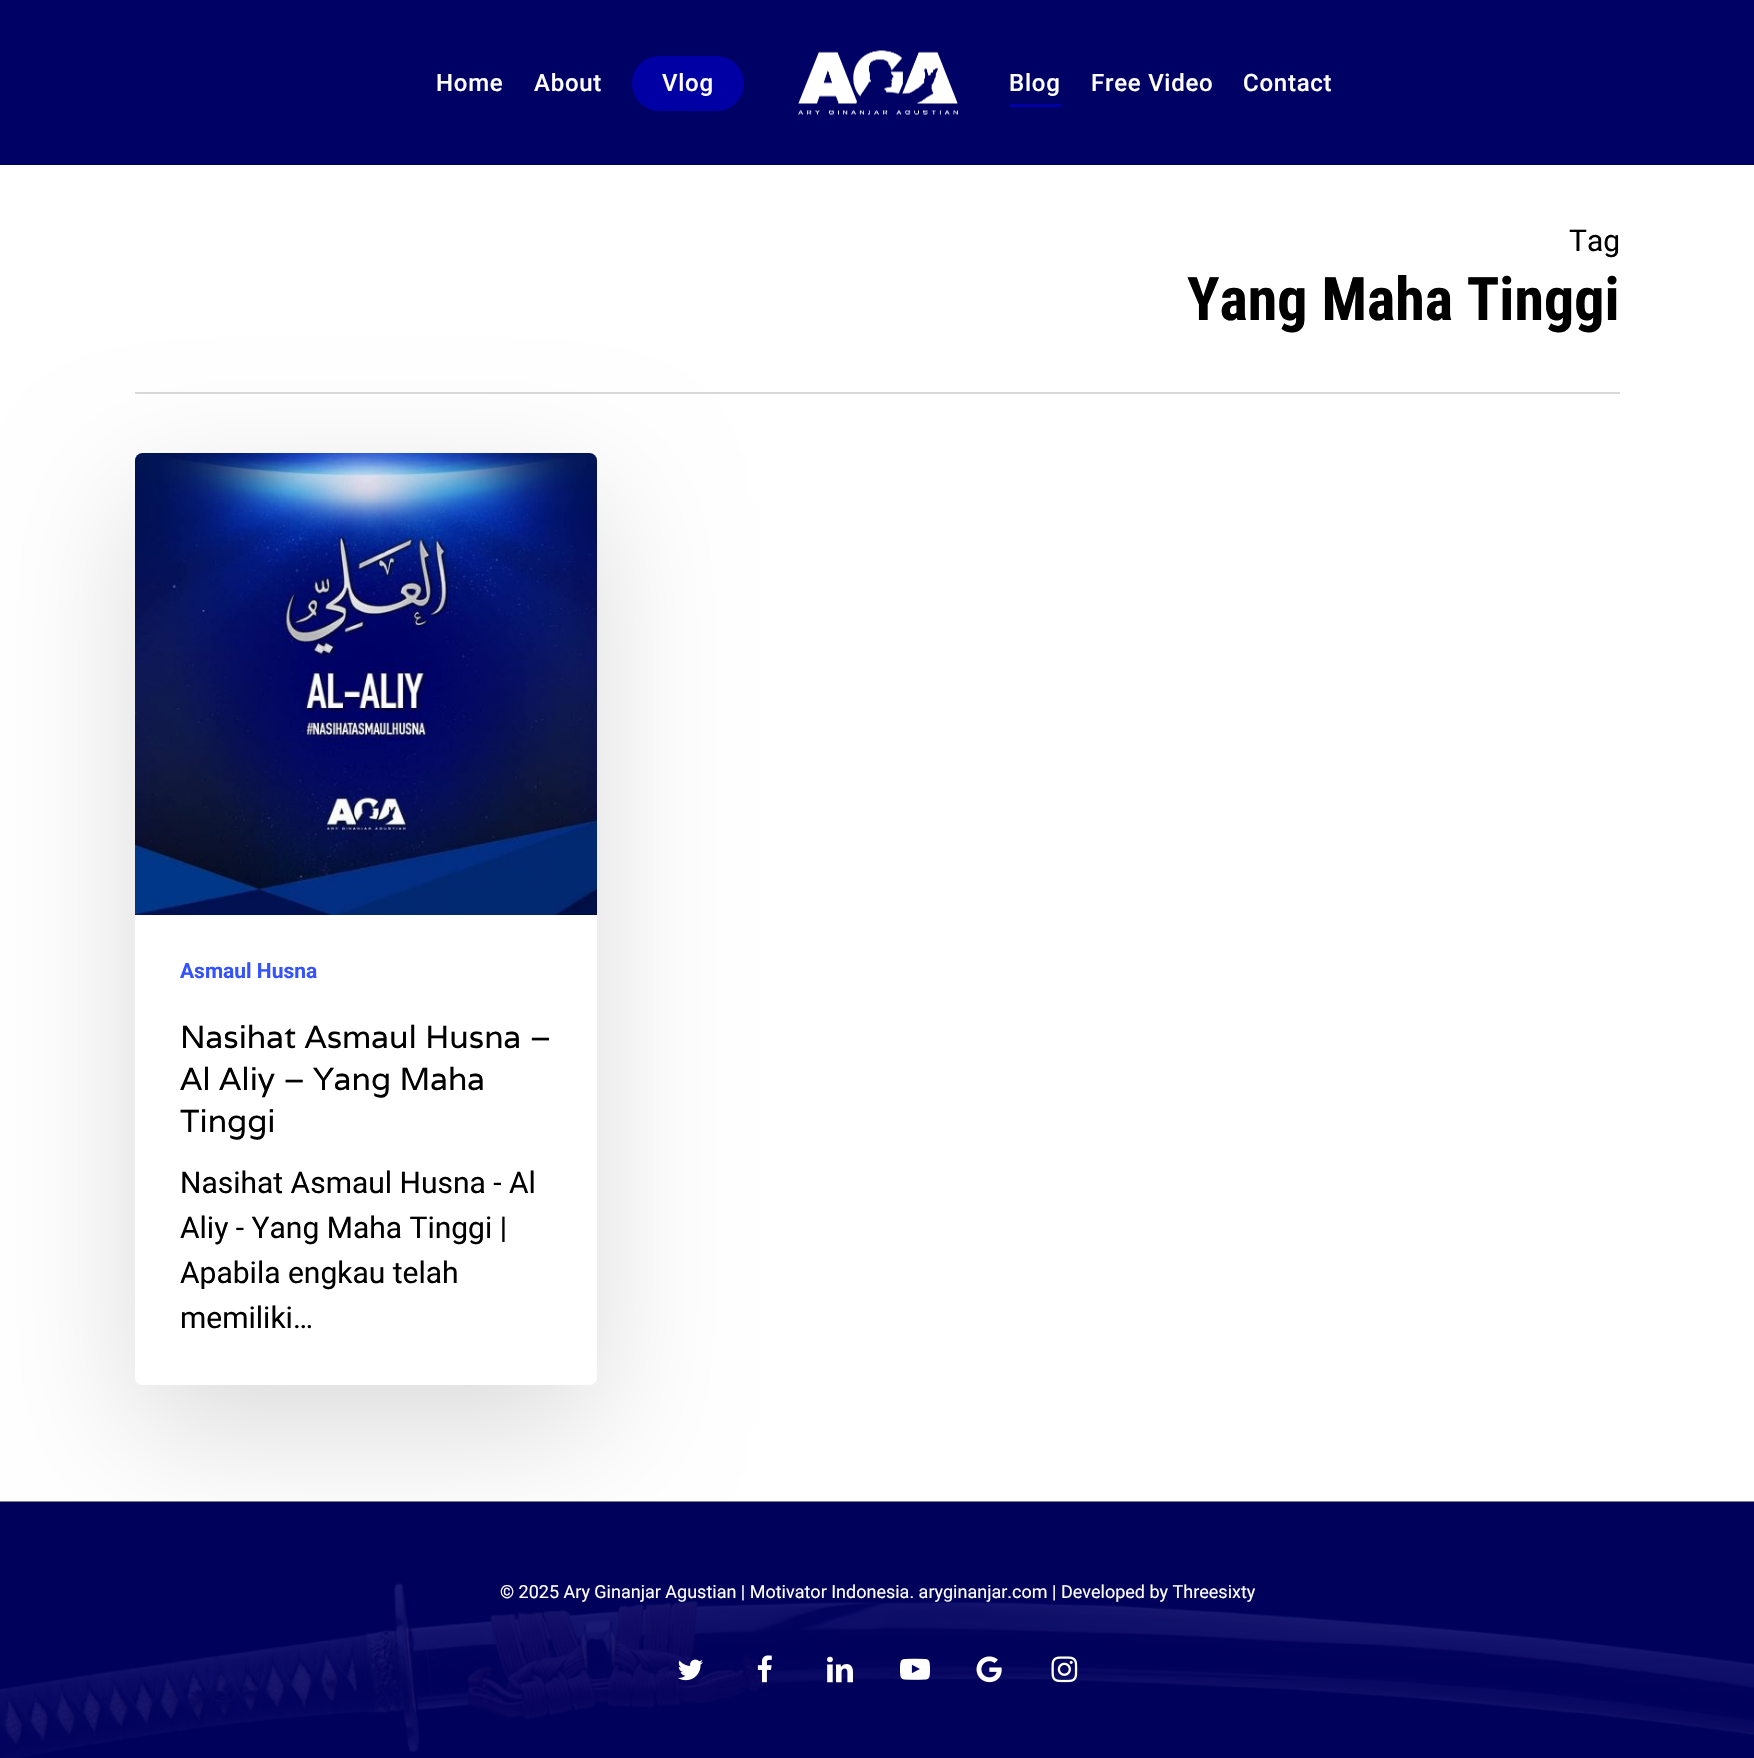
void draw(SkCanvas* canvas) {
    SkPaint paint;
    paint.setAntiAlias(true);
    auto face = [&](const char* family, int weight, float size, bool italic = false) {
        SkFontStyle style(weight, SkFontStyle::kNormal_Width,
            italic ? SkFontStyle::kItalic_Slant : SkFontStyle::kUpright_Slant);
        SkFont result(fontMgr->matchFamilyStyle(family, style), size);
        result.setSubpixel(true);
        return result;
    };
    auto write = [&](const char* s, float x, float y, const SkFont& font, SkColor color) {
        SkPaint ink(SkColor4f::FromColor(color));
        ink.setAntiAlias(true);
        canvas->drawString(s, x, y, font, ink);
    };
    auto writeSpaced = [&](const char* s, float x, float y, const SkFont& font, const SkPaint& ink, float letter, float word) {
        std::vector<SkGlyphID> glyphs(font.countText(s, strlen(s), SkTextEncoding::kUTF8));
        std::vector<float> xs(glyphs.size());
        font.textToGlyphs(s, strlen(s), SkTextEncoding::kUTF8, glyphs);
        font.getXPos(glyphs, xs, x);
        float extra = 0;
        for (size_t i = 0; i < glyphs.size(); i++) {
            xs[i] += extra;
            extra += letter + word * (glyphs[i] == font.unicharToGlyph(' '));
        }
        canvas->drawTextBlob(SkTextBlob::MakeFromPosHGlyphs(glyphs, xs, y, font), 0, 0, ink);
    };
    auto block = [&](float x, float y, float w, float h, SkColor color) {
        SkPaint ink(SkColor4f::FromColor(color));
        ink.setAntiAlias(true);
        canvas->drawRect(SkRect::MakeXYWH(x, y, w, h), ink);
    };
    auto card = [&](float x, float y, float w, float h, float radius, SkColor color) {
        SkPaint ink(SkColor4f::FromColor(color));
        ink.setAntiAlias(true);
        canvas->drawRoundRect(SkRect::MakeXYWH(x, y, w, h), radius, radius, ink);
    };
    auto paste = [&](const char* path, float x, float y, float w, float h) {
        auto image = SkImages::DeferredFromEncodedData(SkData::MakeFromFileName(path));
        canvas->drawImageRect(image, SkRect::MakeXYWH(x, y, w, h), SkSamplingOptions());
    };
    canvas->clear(SK_ColorWHITE);
    block(0, 0, 1754, 165, SkColorSetRGB(0, 1, 101));
    paste("pic1.png", 798, 50, 160, 65);
    auto kFont1 = face("Roboto", 500, 24);
    paint.setColor(SK_ColorWHITE);
    writeSpaced("Home", 436, 91, kFont1, paint, 0.75f, 0);
    writeSpaced("About", 534, 91, kFont1, paint, 0.75f, 0);
    card(632, 56, 112, 55, 27.5f, SkColorSetRGB(0, 0, 165));
    writeSpaced("Vlog", 662, 91, kFont1, paint, 0.75f, 0);
    writeSpaced("Blog", 1009, 91, kFont1, paint, 0.75f, 0);
    block(1010, 104, 51, 3, SkColorSetRGB(0, 0, 165));
    writeSpaced("Free Video", 1091, 91, kFont1, paint, 0.75f, 0);
    writeSpaced("Contact", 1243, 91, kFont1, paint, 0.75f, 0);
    canvas->save();
    canvas->clipPath(SkPathBuilder(SkPathFillType::kEvenOdd).moveTo(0, 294).lineTo(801, 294).lineTo(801, 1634).lineTo(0, 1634).close().moveTo(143, 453).lineTo(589, 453).cubicTo(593.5f, 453, 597, 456.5f, 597, 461).lineTo(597, 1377).cubicTo(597, 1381.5f, 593.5f, 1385, 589, 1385).lineTo(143, 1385).cubicTo(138.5f, 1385, 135, 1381.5f, 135, 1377).lineTo(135, 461).cubicTo(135, 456.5f, 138.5f, 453, 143, 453).close().detach(), true);
    paint.setColor(SkColorSetARGB(36, 0, 0, 0));
    paint.setMaskFilter(SkMaskFilter::MakeBlur(kNormal_SkBlurStyle, 67.5f));
    canvas->drawRoundRect(SkRect::MakeXYWH(135, 498, 462, 932), 8, 8, paint);
    paint.setMaskFilter(nullptr);
    canvas->restore();
    block(135, 392, 1485, 2, SkColorSetRGB(216, 216, 216));
    auto kFont2 = face("Roboto", 400, 30);
    write("Tag", 1569, 251, kFont2, SK_ColorBLACK);
    auto kFont3 = face("Roboto Condensed", 700, 60);
    write("Yang Maha Tinggi", 1187, 320, kFont3, SK_ColorBLACK);
    paste("pic2.png", 135, 453, 462, 462);
    auto kFont4 = face("Roboto", 700, 21);
    write("Asmaul Husna", 180, 978, kFont4, SkColorSetRGB(52, 82, 255));
    paint.setColor(SK_ColorWHITE);
    canvas->drawPath(SkPathBuilder().moveTo(135, 1001).lineTo(597, 1001).lineTo(597, 1377).cubicTo(597, 1381.5f, 593.5f, 1385, 589, 1385).lineTo(143, 1385).cubicTo(138.5f, 1385, 135, 1381.5f, 135, 1377).close().detach(), paint);
    auto kFont5 = face("Varela", 400, 31.9f);
    write("Nasihat Asmaul Husna –", 180, 1048, kFont5, SK_ColorBLACK);
    write("Al Aliy – Yang Maha", 180, 1090, kFont5, SK_ColorBLACK);
    write("Tinggi", 180, 1132, kFont5, SK_ColorBLACK);
    write("Nasihat Asmaul Husna - Al", 180, 1193, kFont2, SK_ColorBLACK);
    write("Aliy - Yang Maha Tinggi |", 180, 1238, kFont2, SK_ColorBLACK);
    write("Apabila engkau telah", 180, 1283, kFont2, SK_ColorBLACK);
    write("memiliki…", 180, 1328, kFont2, SK_ColorBLACK);
    paste("pic3.png", 0, 1501, 1754, 257);
    auto kFont6 = face("Roboto", 400, 18);
    write("© 2025 Ary Ginanjar Agustian | Motivator Indonesia. aryginanjar.com | Developed by Threesixty", 500, 1598, kFont6, SK_ColorWHITE);
    paste("pic4.png", 678, 1659, 25, 22);
    paste("pic5.png", 757, 1655, 15, 28);
    paste("pic6.png", 827, 1656, 26, 27);
    paste("pic7.png", 900, 1658, 30, 22);
    paste("pic8.png", 976, 1656, 26, 27);
    paste("pic9.png", 1051, 1656, 27, 27);
}
